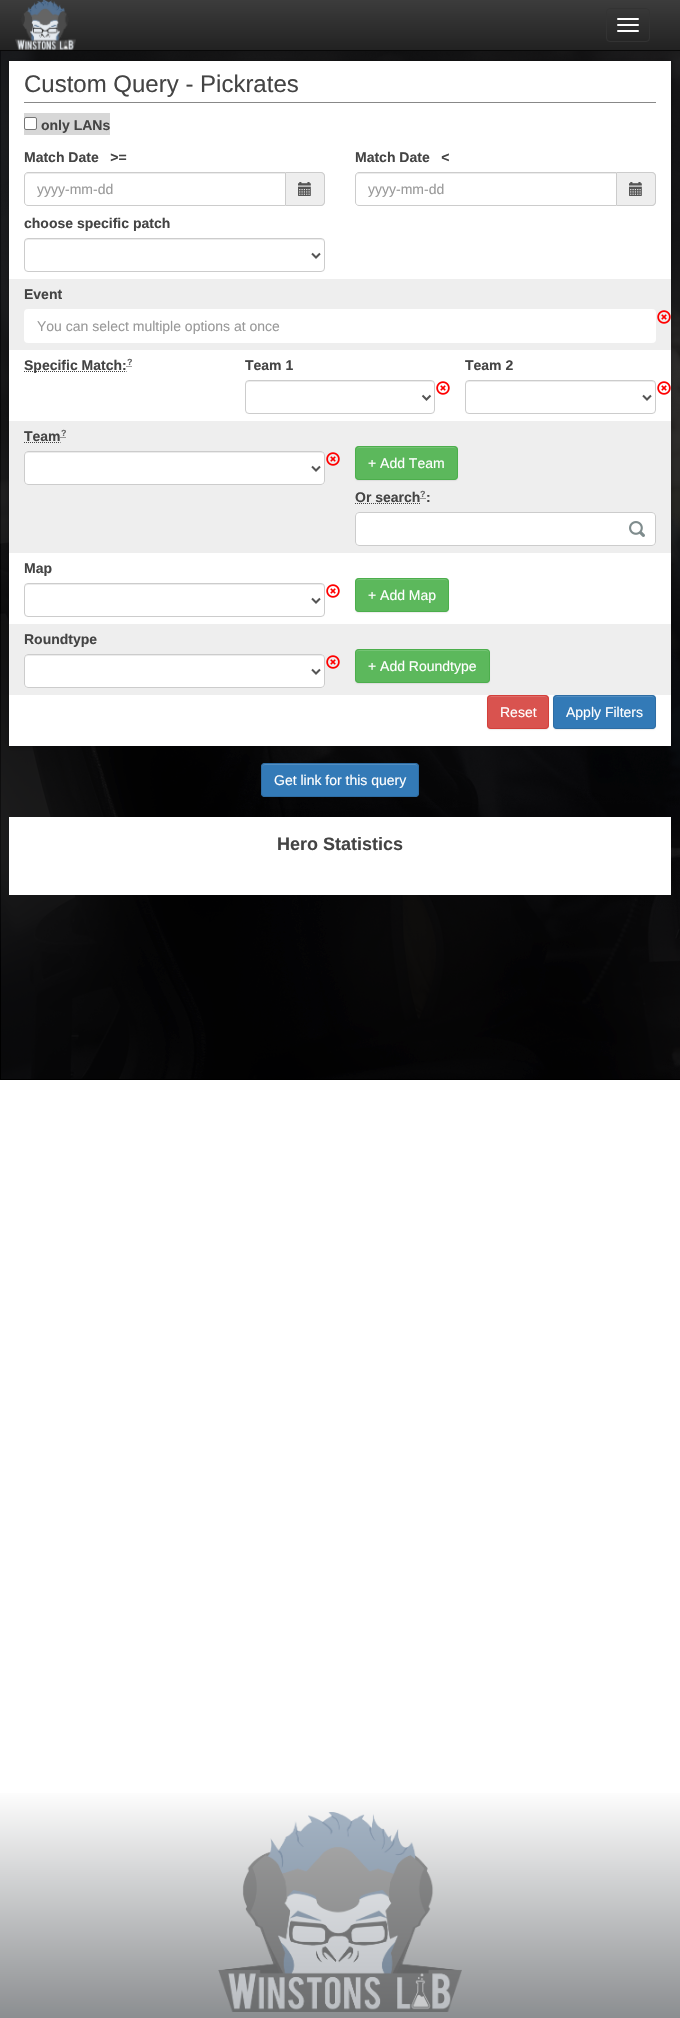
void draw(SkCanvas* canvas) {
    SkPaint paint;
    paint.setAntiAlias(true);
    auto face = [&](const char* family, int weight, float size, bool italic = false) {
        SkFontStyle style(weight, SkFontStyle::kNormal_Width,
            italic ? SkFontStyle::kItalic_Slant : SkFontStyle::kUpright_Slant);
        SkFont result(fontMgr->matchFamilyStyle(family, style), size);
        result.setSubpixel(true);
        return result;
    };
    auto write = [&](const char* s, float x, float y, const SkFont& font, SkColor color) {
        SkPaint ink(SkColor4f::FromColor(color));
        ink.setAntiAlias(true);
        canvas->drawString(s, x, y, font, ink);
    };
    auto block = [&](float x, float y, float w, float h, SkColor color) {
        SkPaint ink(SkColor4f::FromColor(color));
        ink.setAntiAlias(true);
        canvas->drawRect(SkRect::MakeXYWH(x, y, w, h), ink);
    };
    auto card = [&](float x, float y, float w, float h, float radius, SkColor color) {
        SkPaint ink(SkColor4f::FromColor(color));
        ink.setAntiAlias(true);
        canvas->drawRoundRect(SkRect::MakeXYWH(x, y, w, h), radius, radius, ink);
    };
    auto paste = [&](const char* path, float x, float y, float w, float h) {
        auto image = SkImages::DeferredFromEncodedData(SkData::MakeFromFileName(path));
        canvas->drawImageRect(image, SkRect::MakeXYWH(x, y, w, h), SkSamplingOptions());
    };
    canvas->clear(SK_ColorWHITE);
    paste("pic1.png", 0, 51, 680, 1029);
    {
        const SkColor colors[] = {SkColorSetRGB(60, 60, 60), SkColorSetRGB(34, 34, 34)};
        const float stops[] = {0, 1};
        const SkPoint ends[] = {{340, 0}, {340, 50}};
        paint.setShader(SkGradientShader::MakeLinear(ends, colors, stops, 2, SkTileMode::kClamp));
        paint.setAlpha(255);
    }
    canvas->drawRect(SkRect::MakeXYWH(0, 0, 680, 50), paint);
    block(0, 50, 680, 1, SkColorSetRGB(8, 8, 8));
    paste("pic2.png", 15, 0, 61, 50);
    paint.setStyle(SkPaint::kStroke_Style);
    paint.setStrokeWidth(1);
    paint.setShader(nullptr);
    paint.setColor(SkColorSetRGB(51, 51, 51));
    canvas->drawRoundRect(SkRect::MakeXYWH(606.5f, 8.5f, 43, 33), 3.5f, 3.5f, paint);
    card(617, 18, 22, 2, 1, SK_ColorWHITE);
    card(617, 24, 22, 2, 1, SK_ColorWHITE);
    card(617, 30, 22, 2, 1, SK_ColorWHITE);
    paint.setStyle(SkPaint::kFill_Style);
    paint.setColor(SkColorSetARGB(51, 0, 0, 0));
    paint.setMaskFilter(SkMaskFilter::MakeBlur(kNormal_SkBlurStyle, 2));
    canvas->drawRect(SkRect::MakeXYWH(8, 61, 664, 687), paint);
    paint.setMaskFilter(nullptr);
    block(9, 61, 662, 685, SK_ColorWHITE);
    block(24, 102, 632, 1, SkColorSetRGB(136, 136, 136));
    auto kFont1 = face("Liberation Sans", 400, 24);
    write("Custom Query - Pickrates", 24, 92, kFont1, SkColorSetRGB(68, 68, 68));
    block(24, 113, 86, 22, SkColorSetRGB(215, 215, 215));
    paint.setColor(SK_ColorWHITE);
    canvas->drawRoundRect(SkRect::MakeXYWH(24.5f, 117.5f, 12, 12), 1.5f, 1.5f, paint);
    paint.setStyle(SkPaint::kStroke_Style);
    paint.setColor(SkColorSetRGB(118, 118, 118));
    canvas->drawRoundRect(SkRect::MakeXYWH(24.5f, 117.5f, 12, 12), 1.5f, 1.5f, paint);
    auto kFont2 = face("Liberation Sans", 700, 14);
    write("only LANs", 41, 130, kFont2, SkColorSetRGB(68, 68, 68));
    write("Match Date   >=", 24, 162, kFont2, SkColorSetRGB(68, 68, 68));
    paint.setStyle(SkPaint::kFill_Style);
    paint.setColor(SkColorSetRGB(236, 236, 236));
    canvas->drawPath(SkPathBuilder().moveTo(28, 174).lineTo(285, 174).lineTo(285, 173).lineTo(28, 173).cubicTo(26, 173, 25, 174, 25, 176).lineTo(25, 177).cubicTo(25, 175, 26, 174, 28, 174).close().detach(), paint);
    paint.setStyle(SkPaint::kStroke_Style);
    paint.setColor(SkColorSetRGB(204, 204, 204));
    canvas->drawPath(SkPathBuilder().moveTo(28, 172.5f).lineTo(285.5f, 172.5f).lineTo(285.5f, 205.5f).lineTo(28, 205.5f).cubicTo(26, 205.5f, 24.5f, 204, 24.5f, 202).lineTo(24.5f, 176).cubicTo(24.5f, 174, 26, 172.5f, 28, 172.5f).close().detach(), paint);
    auto kFont3 = face("Liberation Sans", 400, 14);
    write("yyyy-mm-dd", 37, 194, kFont3, SkColorSetRGB(153, 153, 153));
    paint.setStyle(SkPaint::kFill_Style);
    paint.setColor(SkColorSetRGB(238, 238, 238));
    canvas->drawPath(SkPathBuilder().moveTo(286, 172).lineTo(321, 172).cubicTo(323, 172, 325, 174, 325, 176).lineTo(325, 202).cubicTo(325, 204, 323, 206, 321, 206).lineTo(286, 206).close().detach(), paint);
    paint.setColor(SkColorSetRGB(204, 204, 204));
    canvas->drawPath(SkPathBuilder(SkPathFillType::kEvenOdd).moveTo(286, 172).lineTo(321, 172).cubicTo(323, 172, 325, 174, 325, 176).lineTo(325, 202).cubicTo(325, 204, 323, 206, 321, 206).lineTo(286, 206).close().moveTo(286, 173).lineTo(321, 173).cubicTo(322.5f, 173, 324, 174.5f, 324, 176).lineTo(324, 202).cubicTo(324, 203.5f, 322.5f, 205, 321, 205).lineTo(286, 205).close().detach(), paint);
    paste("pic3.png", 298, 182, 13, 14);
    write("Match Date   <", 355, 162, kFont2, SkColorSetRGB(68, 68, 68));
    paint.setColor(SkColorSetRGB(236, 236, 236));
    canvas->drawPath(SkPathBuilder().moveTo(359, 174).lineTo(616, 174).lineTo(616, 173).lineTo(359, 173).cubicTo(357, 173, 356, 174, 356, 176).lineTo(356, 177).cubicTo(356, 175, 357, 174, 359, 174).close().detach(), paint);
    paint.setStyle(SkPaint::kStroke_Style);
    paint.setColor(SkColorSetRGB(204, 204, 204));
    canvas->drawPath(SkPathBuilder().moveTo(359, 172.5f).lineTo(616.5f, 172.5f).lineTo(616.5f, 205.5f).lineTo(359, 205.5f).cubicTo(357, 205.5f, 355.5f, 204, 355.5f, 202).lineTo(355.5f, 176).cubicTo(355.5f, 174, 357, 172.5f, 359, 172.5f).close().detach(), paint);
    write("yyyy-mm-dd", 368, 194, kFont3, SkColorSetRGB(153, 153, 153));
    paint.setStyle(SkPaint::kFill_Style);
    paint.setColor(SkColorSetRGB(238, 238, 238));
    canvas->drawPath(SkPathBuilder().moveTo(617, 172).lineTo(652, 172).cubicTo(654, 172, 656, 174, 656, 176).lineTo(656, 202).cubicTo(656, 204, 654, 206, 652, 206).lineTo(617, 206).close().detach(), paint);
    paint.setColor(SkColorSetRGB(204, 204, 204));
    canvas->drawPath(SkPathBuilder(SkPathFillType::kEvenOdd).moveTo(617, 172).lineTo(652, 172).cubicTo(654, 172, 656, 174, 656, 176).lineTo(656, 202).cubicTo(656, 204, 654, 206, 652, 206).lineTo(617, 206).close().moveTo(617, 173).lineTo(652, 173).cubicTo(653.5f, 173, 655, 174.5f, 655, 176).lineTo(655, 202).cubicTo(655, 203.5f, 653.5f, 205, 652, 205).lineTo(617, 205).close().detach(), paint);
    paste("pic3.png", 629, 182, 13, 14);
    write("choose specific patch", 24, 228, kFont2, SkColorSetRGB(68, 68, 68));
    paint.setColor(SkColorSetRGB(236, 236, 236));
    canvas->drawPath(SkPathBuilder().moveTo(28, 240).lineTo(321, 240).cubicTo(323, 240, 324, 241, 324, 243).lineTo(323, 240).lineTo(322, 239).lineTo(28, 239).cubicTo(26, 239, 25, 241, 25, 243).cubicTo(25, 241, 26, 240, 28, 240).close().detach(), paint);
    paint.setStyle(SkPaint::kStroke_Style);
    paint.setColor(SkColorSetRGB(204, 204, 204));
    canvas->drawRoundRect(SkRect::MakeXYWH(24.5f, 238.5f, 300, 33), 3.5f, 3.5f, paint);
    paint.setStrokeWidth(2);
    paint.setColor(SkColorSetRGB(85, 85, 85));
    canvas->drawPath(SkPathBuilder().moveTo(312, 253.5f).lineTo(316, 257.5f).lineTo(320, 253.5f).detach(), paint);
    block(9, 279, 662, 71, SkColorSetRGB(238, 238, 238));
    write("Event", 24, 299, kFont2, SkColorSetRGB(68, 68, 68));
    paste("pic4.png", 657, 310, 14, 14);
    card(24, 309, 632, 34, 4, SK_ColorWHITE);
    write("You can select multiple options at once", 37, 331, kFont3, SkColorSetRGB(153, 153, 153));
    paint.setStrokeWidth(1);
    paint.setColor(SkColorSetRGB(68, 68, 68));
    paint.setPathEffect(SkDashPathEffect::Make({{1, 1}}, 0));
    canvas->drawPath(SkPathBuilder().moveTo(24, 371.5f).lineTo(126.5f, 371.5f).detach(), paint);
    paint.setPathEffect(nullptr);
    write("Specific Match:", 24, 370, kFont2, SkColorSetRGB(68, 68, 68));
    canvas->drawPath(SkPathBuilder().moveTo(126.5f, 366.5f).lineTo(127.5f, 366.5f).moveTo(128.5f, 366.5f).lineTo(129.5f, 366.5f).moveTo(130.5f, 366.5f).lineTo(131.5f, 366.5f).detach(), paint);
    auto kFont4 = face("Liberation Sans", 700, 9);
    write("?", 127, 365, kFont4, SkColorSetRGB(102, 102, 102));
    write("Team 1", 245, 370, kFont2, SkColorSetRGB(68, 68, 68));
    paint.setStyle(SkPaint::kFill_Style);
    paint.setColor(SkColorSetRGB(236, 236, 236));
    canvas->drawPath(SkPathBuilder().moveTo(249, 382).lineTo(431, 382).cubicTo(433, 382, 434, 383, 434, 385).cubicTo(434, 383, 433, 381, 431, 381).lineTo(249, 381).cubicTo(247, 381, 246, 383, 246, 385).cubicTo(246, 383, 247, 382, 249, 382).close().detach(), paint);
    paint.setStyle(SkPaint::kStroke_Style);
    paint.setColor(SkColorSetRGB(204, 204, 204));
    canvas->drawRoundRect(SkRect::MakeXYWH(245.5f, 380.5f, 189, 33), 3.5f, 3.5f, paint);
    paint.setStrokeWidth(2);
    paint.setColor(SkColorSetRGB(85, 85, 85));
    canvas->drawPath(SkPathBuilder().moveTo(422.5f, 395.5f).lineTo(426.5f, 399.5f).lineTo(430.5f, 395.5f).detach(), paint);
    paste("pic5.png", 436, 381, 14, 14);
    write("Team 2", 465, 370, kFont2, SkColorSetRGB(68, 68, 68));
    paint.setStyle(SkPaint::kFill_Style);
    paint.setColor(SkColorSetRGB(236, 236, 236));
    canvas->drawPath(SkPathBuilder().moveTo(469, 382).lineTo(652, 382).cubicTo(654, 382, 655, 383, 655, 385).cubicTo(655, 383, 654, 381, 652, 381).lineTo(469, 381).cubicTo(467, 381, 466, 383, 466, 385).cubicTo(466, 383, 467, 382, 469, 382).close().detach(), paint);
    paint.setStyle(SkPaint::kStroke_Style);
    paint.setStrokeWidth(1);
    paint.setColor(SkColorSetRGB(204, 204, 204));
    canvas->drawRoundRect(SkRect::MakeXYWH(465.5f, 380.5f, 190, 33), 3.5f, 3.5f, paint);
    paint.setStrokeWidth(2);
    paint.setColor(SkColorSetRGB(85, 85, 85));
    canvas->drawPath(SkPathBuilder().moveTo(643, 395.5f).lineTo(647, 399.5f).lineTo(651, 395.5f).detach(), paint);
    paste("pic5.png", 657, 381, 14, 14);
    block(9, 421, 662, 132, SkColorSetRGB(238, 238, 238));
    write("Team", 24, 441, kFont2, SkColorSetRGB(68, 68, 68));
    paint.setStrokeWidth(1);
    paint.setColor(SkColorSetRGB(68, 68, 68));
    paint.setPathEffect(SkDashPathEffect::Make({{1, 1}}, 0));
    canvas->drawPath(SkPathBuilder().moveTo(24, 442.5f).lineTo(60.5f, 442.5f).detach(), paint);
    paint.setPathEffect(nullptr);
    canvas->drawPath(SkPathBuilder().moveTo(60.5f, 437.5f).lineTo(61.5f, 437.5f).moveTo(62.5f, 437.5f).lineTo(63.5f, 437.5f).moveTo(64.5f, 437.5f).lineTo(65.5f, 437.5f).detach(), paint);
    write("?", 61, 436, kFont4, SkColorSetRGB(102, 102, 102));
    card(24, 451, 301, 34, 4, SK_ColorWHITE);
    paint.setStyle(SkPaint::kFill_Style);
    paint.setColor(SkColorSetRGB(236, 236, 236));
    canvas->drawPath(SkPathBuilder().moveTo(28, 453).lineTo(321, 453).cubicTo(323, 453, 324, 454, 324, 456).lineTo(323, 453).lineTo(322, 452).lineTo(28, 452).cubicTo(26, 452, 25, 454, 25, 456).cubicTo(25, 454, 26, 453, 28, 453).close().detach(), paint);
    paint.setStyle(SkPaint::kStroke_Style);
    paint.setColor(SkColorSetRGB(204, 204, 204));
    canvas->drawRoundRect(SkRect::MakeXYWH(24.5f, 451.5f, 300, 33), 3.5f, 3.5f, paint);
    paint.setStrokeWidth(2);
    paint.setColor(SkColorSetRGB(85, 85, 85));
    canvas->drawPath(SkPathBuilder().moveTo(312, 466.5f).lineTo(316, 470.5f).lineTo(320, 466.5f).detach(), paint);
    paste("pic4.png", 326, 452, 14, 14);
    paint.setStyle(SkPaint::kFill_Style);
    paint.setColor(SkColorSetARGB(18, 0, 0, 0));
    paint.setMaskFilter(SkMaskFilter::MakeBlur(kNormal_SkBlurStyle, 0.5f));
    canvas->drawRoundRect(SkRect::MakeXYWH(355, 447, 103, 34), 4, 4, paint);
    paint.setMaskFilter(nullptr);
    card(355, 446, 103, 34, 4, SkColorSetRGB(92, 184, 92));
    paint.setColor(SkColorSetRGB(116, 195, 116));
    canvas->drawPath(SkPathBuilder().moveTo(359, 448).lineTo(454, 448).cubicTo(456, 448, 457, 449, 457, 451).cubicTo(457, 443, 441, 447, 438, 447).lineTo(375, 447).cubicTo(372, 447, 356, 443, 356, 451).cubicTo(356, 449, 357, 448, 359, 448).close().detach(), paint);
    paint.setStyle(SkPaint::kStroke_Style);
    paint.setStrokeWidth(1);
    paint.setColor(SkColorSetRGB(76, 174, 76));
    canvas->drawRoundRect(SkRect::MakeXYWH(355.5f, 446.5f, 102, 33), 3.5f, 3.5f, paint);
    write("+ Add Team", 368, 468, kFont3, SK_ColorWHITE);
    write("Or search", 355, 502, kFont2, SkColorSetRGB(68, 68, 68));
    paint.setColor(SkColorSetRGB(68, 68, 68));
    paint.setPathEffect(SkDashPathEffect::Make({{1, 1}}, 0));
    canvas->drawPath(SkPathBuilder().moveTo(355, 503.5f).lineTo(420.5f, 503.5f).detach(), paint);
    paint.setPathEffect(nullptr);
    canvas->drawPath(SkPathBuilder().moveTo(420.5f, 498.5f).lineTo(421.5f, 498.5f).moveTo(422.5f, 498.5f).lineTo(423.5f, 498.5f).moveTo(424.5f, 498.5f).lineTo(425.5f, 498.5f).detach(), paint);
    write("?", 420, 497, kFont4, SkColorSetRGB(102, 102, 102));
    write(":", 426, 502, kFont2, SkColorSetRGB(68, 68, 68));
    card(355, 512, 301, 34, 4, SK_ColorWHITE);
    paste("pic6.png", 629, 521, 16, 16);
    paint.setColor(SkColorSetRGB(204, 204, 204));
    canvas->drawRoundRect(SkRect::MakeXYWH(355.5f, 512.5f, 300, 33), 3.5f, 3.5f, paint);
    write("Map", 24, 573, kFont2, SkColorSetRGB(68, 68, 68));
    paint.setStyle(SkPaint::kFill_Style);
    paint.setColor(SkColorSetRGB(236, 236, 236));
    canvas->drawPath(SkPathBuilder().moveTo(28, 585).lineTo(321, 585).cubicTo(323, 585, 324, 586, 324, 588).lineTo(323, 585).lineTo(322, 584).lineTo(28, 584).cubicTo(26, 584, 25, 586, 25, 588).cubicTo(25, 586, 26, 585, 28, 585).close().detach(), paint);
    paint.setStyle(SkPaint::kStroke_Style);
    paint.setColor(SkColorSetRGB(204, 204, 204));
    canvas->drawRoundRect(SkRect::MakeXYWH(24.5f, 583.5f, 300, 33), 3.5f, 3.5f, paint);
    paint.setStrokeWidth(2);
    paint.setColor(SkColorSetRGB(85, 85, 85));
    canvas->drawPath(SkPathBuilder().moveTo(312, 598.5f).lineTo(316, 602.5f).lineTo(320, 598.5f).detach(), paint);
    paste("pic5.png", 326, 584, 14, 14);
    paint.setStyle(SkPaint::kFill_Style);
    paint.setColor(SkColorSetARGB(18, 0, 0, 0));
    paint.setMaskFilter(SkMaskFilter::MakeBlur(kNormal_SkBlurStyle, 0.5f));
    canvas->drawRoundRect(SkRect::MakeXYWH(355, 579, 94, 34), 4, 4, paint);
    paint.setMaskFilter(nullptr);
    card(355, 578, 94, 34, 4, SkColorSetRGB(92, 184, 92));
    paint.setColor(SkColorSetRGB(116, 195, 116));
    canvas->drawPath(SkPathBuilder().moveTo(359, 580).lineTo(445, 580).cubicTo(447, 580, 448, 581, 448, 583).cubicTo(448, 575, 434, 579, 431, 579).lineTo(373, 579).cubicTo(370, 579, 356, 575, 356, 583).cubicTo(356, 581, 357, 580, 359, 580).close().detach(), paint);
    paint.setStyle(SkPaint::kStroke_Style);
    paint.setStrokeWidth(1);
    paint.setColor(SkColorSetRGB(76, 174, 76));
    canvas->drawRoundRect(SkRect::MakeXYWH(355.5f, 578.5f, 93, 33), 3.5f, 3.5f, paint);
    write("+ Add Map", 368, 600, kFont3, SK_ColorWHITE);
    block(9, 624, 662, 71, SkColorSetRGB(238, 238, 238));
    write("Roundtype", 24, 644, kFont2, SkColorSetRGB(68, 68, 68));
    card(24, 654, 301, 34, 4, SK_ColorWHITE);
    paint.setStyle(SkPaint::kFill_Style);
    paint.setColor(SkColorSetRGB(236, 236, 236));
    canvas->drawPath(SkPathBuilder().moveTo(28, 656).lineTo(321, 656).cubicTo(323, 656, 324, 657, 324, 659).lineTo(323, 656).lineTo(322, 655).lineTo(28, 655).cubicTo(26, 655, 25, 657, 25, 659).cubicTo(25, 657, 26, 656, 28, 656).close().detach(), paint);
    paint.setStyle(SkPaint::kStroke_Style);
    paint.setColor(SkColorSetRGB(204, 204, 204));
    canvas->drawRoundRect(SkRect::MakeXYWH(24.5f, 654.5f, 300, 33), 3.5f, 3.5f, paint);
    paint.setStrokeWidth(2);
    paint.setColor(SkColorSetRGB(85, 85, 85));
    canvas->drawPath(SkPathBuilder().moveTo(312, 669.5f).lineTo(316, 673.5f).lineTo(320, 669.5f).detach(), paint);
    paste("pic4.png", 326, 655, 14, 14);
    paint.setStyle(SkPaint::kFill_Style);
    paint.setColor(SkColorSetARGB(18, 0, 0, 0));
    paint.setMaskFilter(SkMaskFilter::MakeBlur(kNormal_SkBlurStyle, 0.5f));
    canvas->drawRoundRect(SkRect::MakeXYWH(355, 650, 135, 34), 4, 4, paint);
    paint.setMaskFilter(nullptr);
    card(355, 649, 135, 34, 4, SkColorSetRGB(92, 184, 92));
    paint.setColor(SkColorSetRGB(116, 195, 116));
    canvas->drawPath(SkPathBuilder().moveTo(359, 651).lineTo(486, 651).cubicTo(488, 651, 489, 652, 489, 654).cubicTo(489, 652, 489, 650, 487, 650).lineTo(358, 650).cubicTo(356, 650, 356, 652, 356, 654).cubicTo(356, 652, 357, 651, 359, 651).close().detach(), paint);
    paint.setStyle(SkPaint::kStroke_Style);
    paint.setStrokeWidth(1);
    paint.setColor(SkColorSetRGB(76, 174, 76));
    canvas->drawRoundRect(SkRect::MakeXYWH(355.5f, 649.5f, 134, 33), 3.5f, 3.5f, paint);
    write("+ Add Roundtype", 368, 671, kFont3, SK_ColorWHITE);
    paint.setStyle(SkPaint::kFill_Style);
    paint.setColor(SkColorSetARGB(18, 0, 0, 0));
    paint.setMaskFilter(SkMaskFilter::MakeBlur(kNormal_SkBlurStyle, 0.5f));
    canvas->drawRoundRect(SkRect::MakeXYWH(487, 696, 62, 34), 4, 4, paint);
    paint.setMaskFilter(nullptr);
    card(487, 695, 62, 34, 4, SkColorSetRGB(217, 83, 79));
    paint.setColor(SkColorSetRGB(223, 109, 105));
    canvas->drawPath(SkPathBuilder().moveTo(491, 697).lineTo(545, 697).cubicTo(547, 697, 548, 698, 548, 700).cubicTo(548, 694, 540, 696, 536, 696).lineTo(500, 696).cubicTo(496, 696, 488, 694, 488, 700).cubicTo(488, 698, 489, 697, 491, 697).close().detach(), paint);
    paint.setStyle(SkPaint::kStroke_Style);
    paint.setColor(SkColorSetRGB(212, 63, 58));
    canvas->drawRoundRect(SkRect::MakeXYWH(487.5f, 695.5f, 61, 33), 3.5f, 3.5f, paint);
    write("Reset", 500, 717, kFont3, SK_ColorWHITE);
    paint.setStyle(SkPaint::kFill_Style);
    paint.setColor(SkColorSetARGB(18, 0, 0, 0));
    paint.setMaskFilter(SkMaskFilter::MakeBlur(kNormal_SkBlurStyle, 0.5f));
    canvas->drawRoundRect(SkRect::MakeXYWH(553, 696, 103, 34), 4, 4, paint);
    paint.setMaskFilter(nullptr);
    card(553, 695, 103, 34, 4, SkColorSetRGB(51, 122, 183));
    paint.setColor(SkColorSetRGB(82, 142, 194));
    canvas->drawPath(SkPathBuilder().moveTo(557, 697).lineTo(652, 697).cubicTo(654, 697, 655, 698, 655, 700).cubicTo(655, 692, 639, 696, 636, 696).lineTo(573, 696).cubicTo(570, 696, 554, 692, 554, 700).cubicTo(554, 698, 555, 697, 557, 697).close().detach(), paint);
    paint.setStyle(SkPaint::kStroke_Style);
    paint.setColor(SkColorSetRGB(46, 109, 164));
    canvas->drawRoundRect(SkRect::MakeXYWH(553.5f, 695.5f, 102, 33), 3.5f, 3.5f, paint);
    write("Apply Filters", 566, 717, kFont3, SK_ColorWHITE);
    card(261, 763, 158, 34, 4, SkColorSetRGB(51, 122, 183));
    paint.setStyle(SkPaint::kFill_Style);
    paint.setColor(SkColorSetRGB(82, 142, 194));
    canvas->drawPath(SkPathBuilder().moveTo(265, 765).lineTo(415, 765).cubicTo(417, 765, 418, 766, 418, 768).cubicTo(418, 766, 417, 764, 415, 764).lineTo(264, 764).cubicTo(262, 764, 262, 766, 262, 768).cubicTo(262, 766, 263, 765, 265, 765).close().detach(), paint);
    paint.setStyle(SkPaint::kStroke_Style);
    paint.setColor(SkColorSetRGB(46, 109, 164));
    canvas->drawRoundRect(SkRect::MakeXYWH(261.5f, 763.5f, 157, 33), 3.5f, 3.5f, paint);
    write("Get link for this query", 274, 785, kFont3, SK_ColorWHITE);
    block(9, 817, 662, 78, SK_ColorWHITE);
    auto kFont5 = face("Liberation Sans", 700, 18);
    write("Hero Statistics", 277, 850, kFont5, SkColorSetRGB(68, 68, 68));
    paint.setStyle(SkPaint::kFill_Style);
    {
        const SkColor colors[] = {SK_ColorWHITE, SkColorSetRGB(35, 40, 45)};
        const float stops[] = {0, 1};
        const SkPoint ends[] = {{340, 1788}, {340, 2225}};
        paint.setShader(SkGradientShader::MakeLinear(ends, colors, stops, 2, SkTileMode::kClamp));
        paint.setAlpha(255);
    }
    canvas->drawRect(SkRect::MakeXYWH(0, 1793, 680, 225), paint);
    paste("pic7.png", 218, 1812, 244, 200);
}
